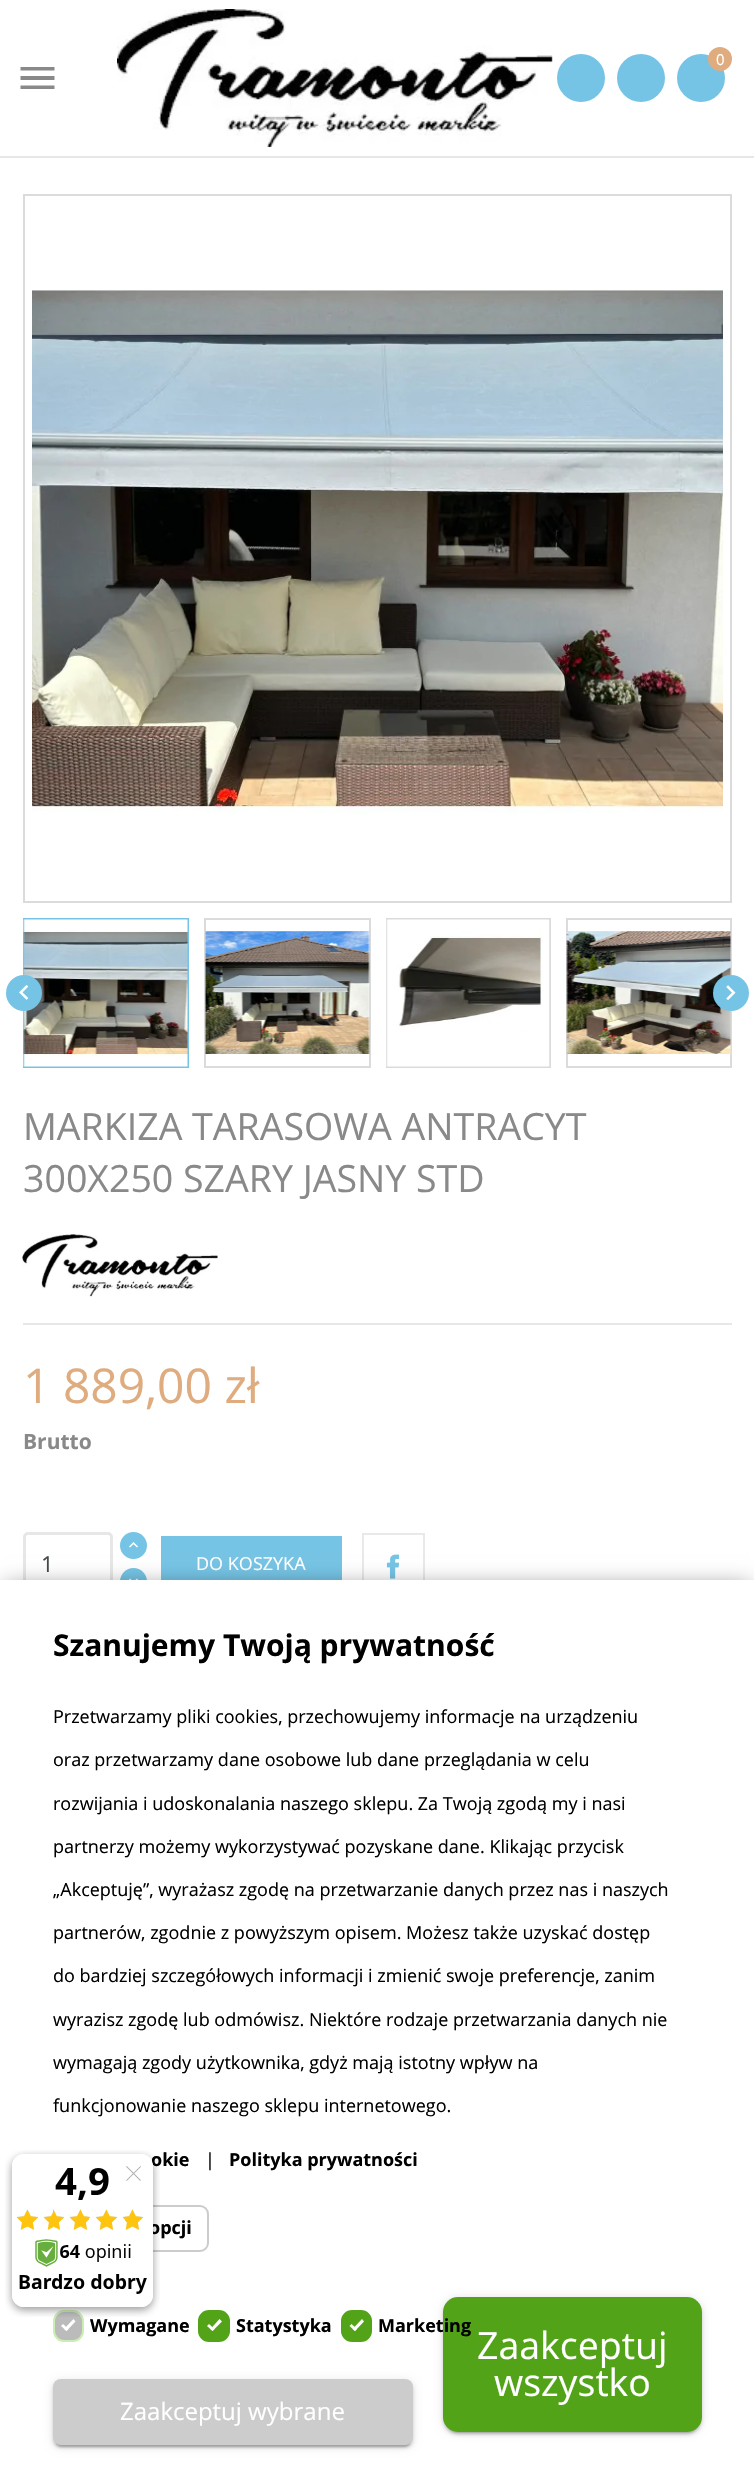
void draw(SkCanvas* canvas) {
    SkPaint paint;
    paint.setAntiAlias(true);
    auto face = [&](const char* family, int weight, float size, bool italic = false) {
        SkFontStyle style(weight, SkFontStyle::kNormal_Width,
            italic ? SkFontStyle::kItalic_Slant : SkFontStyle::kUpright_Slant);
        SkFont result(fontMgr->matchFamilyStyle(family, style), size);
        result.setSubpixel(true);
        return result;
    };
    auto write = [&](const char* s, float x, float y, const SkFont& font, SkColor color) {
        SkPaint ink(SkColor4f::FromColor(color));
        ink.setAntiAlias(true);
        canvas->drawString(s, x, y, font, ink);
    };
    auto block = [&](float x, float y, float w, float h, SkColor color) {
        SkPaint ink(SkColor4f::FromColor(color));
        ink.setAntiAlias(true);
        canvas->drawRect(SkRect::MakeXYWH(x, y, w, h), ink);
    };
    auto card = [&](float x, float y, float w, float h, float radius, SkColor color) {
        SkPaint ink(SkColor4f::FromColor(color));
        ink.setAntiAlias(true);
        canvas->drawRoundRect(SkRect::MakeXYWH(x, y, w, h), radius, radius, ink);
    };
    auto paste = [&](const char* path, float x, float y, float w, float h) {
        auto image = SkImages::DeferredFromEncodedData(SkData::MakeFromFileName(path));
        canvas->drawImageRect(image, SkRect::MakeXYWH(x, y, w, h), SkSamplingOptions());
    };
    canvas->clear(SK_ColorWHITE);
    block(0, 156, 754, 2, SkColorSetRGB(231, 231, 231));
    paste("pic1.png", 117, 9, 436, 138);
    paint.setColor(SkColorSetRGB(118, 196, 229));
    canvas->drawCircle(581, 78, 24, paint);
    canvas->drawCircle(641, 78, 24, paint);
    canvas->drawCircle(701, 78, 24, paint);
    paint.setColor(SkColorSetRGB(223, 172, 127));
    canvas->drawCircle(720, 59, 12, paint);
    auto kFont1 = face("Open Sans", 400, 15);
    write("0", 716, 65, kFont1, SK_ColorWHITE);
    paint.setColor(SkColorSetRGB(137, 137, 137));
    canvas->drawPath(SkPathBuilder().moveTo(20.5f, 67).lineTo(54.5f, 67).lineTo(54.5f, 70.5f).lineTo(20.5f, 70.5f).close().moveTo(20.5f, 80).lineTo(20.5f, 76).lineTo(54.5f, 76).lineTo(54.5f, 80).close().moveTo(20.5f, 89).lineTo(20.5f, 85.5f).lineTo(54.5f, 85.5f).lineTo(54.5f, 89).close().detach(), paint);
    paint.setStyle(SkPaint::kStroke_Style);
    paint.setStrokeWidth(2);
    paint.setColor(SkColorSetRGB(219, 219, 219));
    canvas->drawRect(SkRect::MakeXYWH(24, 195, 707, 707), paint);
    paste("pic2.png", 32, 290, 691, 525);
    paint.setColor(SkColorSetRGB(118, 196, 229));
    canvas->drawRect(SkRect::MakeXYWH(24, 919, 164, 148), paint);
    paste("pic3.png", 23, 919, 165, 148);
    paint.setColor(SkColorSetRGB(219, 219, 219));
    canvas->drawRect(SkRect::MakeXYWH(205, 919, 165, 148), paint);
    paste("pic4.png", 205, 931, 165, 123);
    canvas->drawRect(SkRect::MakeXYWH(387, 919, 163, 148), paint);
    paste("pic5.png", 386, 919, 164, 148);
    canvas->drawRect(SkRect::MakeXYWH(567, 919, 164, 148), paint);
    paste("pic6.png", 566, 931, 165, 123);
    paint.setStyle(SkPaint::kFill_Style);
    paint.setColor(SkColorSetRGB(118, 196, 229));
    canvas->drawCircle(24, 993, 18, paint);
    paste("pic7.png", 19, 985, 10, 15);
    canvas->drawCircle(731, 993, 18, paint);
    paste("pic8.png", 726, 985, 10, 15);
    auto kFont2 = face("Open Sans", 400, 37.5f);
    write("MARKIZA TARASOWA ANTRACYT", 23, 1140, kFont2, SkColorSetRGB(137, 137, 137));
    write("300X250 SZARY JASNY STD", 23, 1192, kFont2, SkColorSetRGB(137, 137, 137));
    paste("pic9.png", 22, 1234, 196, 63);
    block(23, 1323, 709, 2, SkColorSetRGB(231, 231, 231));
    auto kFont3 = face("Open Sans", 400, 48);
    write("1 889,00 zł", 23, 1403, kFont3, SkColorSetRGB(223, 172, 127));
    auto kFont4 = face("Open Sans", 700, 21);
    write("Brutto", 23, 1449, kFont4, SkColorSetRGB(137, 137, 137));
    paint.setStyle(SkPaint::kStroke_Style);
    paint.setStrokeWidth(3);
    paint.setColor(SkColorSetRGB(231, 231, 231));
    canvas->drawRoundRect(SkRect::MakeXYWH(24.5f, 1533.5f, 87, 60), 3.5f, 3.5f, paint);
    auto kFont5 = face("Open Sans", 400, 22);
    write("1", 41, 1572, kFont5, SkColorSetRGB(70, 74, 76));
    paint.setStyle(SkPaint::kFill_Style);
    paint.setColor(SkColorSetRGB(118, 196, 229));
    canvas->drawCircle(133.5f, 1545.5f, 13.5f, paint);
    paste("pic10.png", 129, 1542, 9, 6);
    canvas->drawCircle(133.5f, 1581.5f, 13.5f, paint);
    paste("pic11.png", 129, 1578, 9, 2);
    block(161, 1536, 181, 44, SkColorSetRGB(118, 196, 229));
    auto kFont6 = face("Open Sans", 400, 18);
    write("DO KOSZYKA", 196, 1570, kFont6, SK_ColorWHITE);
    paint.setStyle(SkPaint::kStroke_Style);
    paint.setStrokeWidth(2);
    paint.setColor(SkColorSetRGB(233, 233, 233));
    canvas->drawRect(SkRect::MakeXYWH(363, 1534, 61, 61), paint);
    paste("pic12.png", 386, 1554, 14, 25);
    paint.setStyle(SkPaint::kFill_Style);
    paint.setColor(SkColorSetARGB(128, 0, 0, 0));
    paint.setMaskFilter(SkMaskFilter::MakeBlur(kNormal_SkBlurStyle, 11));
    canvas->drawRect(SkRect::MakeXYWH(5, 1587, 745, 887), paint);
    paint.setMaskFilter(nullptr);
    block(0, 1580, 754, 894, SK_ColorWHITE);
    auto kFont7 = face("Open Sans", 700, 30);
    write("Szanujemy Twoją prywatność", 53, 1656, kFont7, SK_ColorBLACK);
    write("Przetwarzamy pliki cookies, przechowujemy informacje na urządzeniu", 53, 1723, kFont6, SK_ColorBLACK);
    write("oraz przetwarzamy dane osobowe lub dane przeglądania w celu", 53, 1766, kFont6, SK_ColorBLACK);
    write("rozwijania i udoskonalania naszego sklepu. Za Twoją zgodą my i nasi", 53, 1810, kFont6, SK_ColorBLACK);
    write("partnerzy możemy wykorzystywać pozyskane dane. Klikając przycisk", 53, 1853, kFont6, SK_ColorBLACK);
    write("„Akceptuję”, wyrażasz zgodę na przetwarzanie danych przez nas i naszych", 53, 1896, kFont6, SK_ColorBLACK);
    write("partnerów, zgodnie z powyższym opisem. Możesz także uzyskać dostęp", 53, 1939, kFont6, SK_ColorBLACK);
    write("do bardziej szczegółowych informacji i zmienić swoje preferencje, zanim", 53, 1982, kFont6, SK_ColorBLACK);
    write("wyrazisz zgodę lub odmówisz. Niektóre rodzaje przetwarzania danych nie", 53, 2026, kFont6, SK_ColorBLACK);
    write("wymagają zgody użytkownika, gdyż mają istotny wpływ na", 53, 2069, kFont6, SK_ColorBLACK);
    write("funkcjonowanie naszego sklepu internetowego.", 53, 2112, kFont6, SK_ColorBLACK);
    auto kFont8 = face("Open Sans", 700, 18);
    write("okie", 151, 2166, kFont8, SK_ColorBLACK);
    write("|", 205, 2166, kFont6, SK_ColorBLACK);
    write("Polityka prywatności", 229, 2166, kFont8, SK_ColorBLACK);
    paint.setStyle(SkPaint::kStroke_Style);
    paint.setColor(SkColorSetRGB(204, 204, 204));
    canvas->drawRoundRect(SkRect::MakeXYWH(54, 2206, 154, 45), 8, 8, paint);
    write("opcji", 149, 2234, kFont8, SK_ColorBLACK);
    paint.setStyle(SkPaint::kFill_Style);
    paint.setColor(SkColorSetRGB(187, 187, 187));
    canvas->drawRoundRect(SkRect::MakeXYWH(54, 2311, 29, 30), 10, 10, paint);
    paint.setStyle(SkPaint::kStroke_Style);
    paint.setColor(SkColorSetRGB(203, 237, 179));
    canvas->drawRoundRect(SkRect::MakeXYWH(54, 2311, 29, 30), 10, 10, paint);
    paint.setStyle(SkPaint::kFill_Style);
    paint.setColor(SK_ColorWHITE);
    canvas->drawPath(SkPathBuilder().moveTo(73.5f, 2319).lineTo(75.5f, 2321.5f).lineTo(66.5f, 2331).lineTo(64, 2329).close().detach(), paint);
    canvas->drawPath(SkPathBuilder().moveTo(63, 2324).lineTo(68.5f, 2329).lineTo(66.5f, 2331).lineTo(61, 2326).close().detach(), paint);
    write("Wymagane", 90, 2332, kFont8, SK_ColorBLACK);
    paint.setColor(SkColorSetRGB(82, 163, 24));
    canvas->drawRoundRect(SkRect::MakeXYWH(199, 2311, 30, 30), 10, 10, paint);
    paint.setStyle(SkPaint::kStroke_Style);
    canvas->drawRoundRect(SkRect::MakeXYWH(199, 2311, 30, 30), 10, 10, paint);
    paint.setStyle(SkPaint::kFill_Style);
    paint.setColor(SK_ColorWHITE);
    canvas->drawPath(SkPathBuilder().moveTo(219.5f, 2319).lineTo(222, 2321.5f).lineTo(212.5f, 2331).lineTo(210.5f, 2329).close().detach(), paint);
    canvas->drawPath(SkPathBuilder().moveTo(209, 2324).lineTo(214.5f, 2329).lineTo(212.5f, 2331).lineTo(207, 2326).close().detach(), paint);
    write("Statystyka", 236, 2332, kFont8, SK_ColorBLACK);
    paint.setColor(SkColorSetRGB(82, 163, 24));
    canvas->drawRoundRect(SkRect::MakeXYWH(342, 2311, 29, 30), 10, 10, paint);
    paint.setStyle(SkPaint::kStroke_Style);
    canvas->drawRoundRect(SkRect::MakeXYWH(342, 2311, 29, 30), 10, 10, paint);
    paint.setStyle(SkPaint::kFill_Style);
    paint.setColor(SK_ColorWHITE);
    canvas->drawPath(SkPathBuilder().moveTo(362, 2319).lineTo(364, 2321.5f).lineTo(355, 2331).lineTo(352.5f, 2329).close().detach(), paint);
    canvas->drawPath(SkPathBuilder().moveTo(351.5f, 2324).lineTo(357, 2329).lineTo(355, 2331).lineTo(349.5f, 2326).close().detach(), paint);
    paint.setColor(SkColorSetARGB(31, 0, 0, 0));
    paint.setMaskFilter(SkMaskFilter::MakeBlur(kNormal_SkBlurStyle, 4));
    canvas->drawRoundRect(SkRect::MakeXYWH(443, 2298, 259, 135), 15, 15, paint);
    paint.setMaskFilter(nullptr);
    paint.setColor(SkColorSetARGB(36, 0, 0, 0));
    paint.setMaskFilter(SkMaskFilter::MakeBlur(kNormal_SkBlurStyle, 1.5f));
    canvas->drawRoundRect(SkRect::MakeXYWH(443, 2300, 259, 135), 15, 15, paint);
    paint.setMaskFilter(nullptr);
    paint.setColor(SkColorSetARGB(51, 0, 0, 0));
    paint.setMaskFilter(SkMaskFilter::MakeBlur(kNormal_SkBlurStyle, 1));
    canvas->drawRoundRect(SkRect::MakeXYWH(446, 2304, 253, 129), 12, 12, paint);
    paint.setMaskFilter(nullptr);
    card(443, 2297, 259, 135, 15, SkColorSetRGB(82, 163, 24));
    write("Marketing", 378, 2332, kFont8, SK_ColorBLACK);
    paint.setColor(SkColorSetARGB(31, 0, 0, 0));
    paint.setMaskFilter(SkMaskFilter::MakeBlur(kNormal_SkBlurStyle, 4));
    canvas->drawRoundRect(SkRect::MakeXYWH(53, 2381, 360, 66), 8, 8, paint);
    paint.setMaskFilter(nullptr);
    paint.setColor(SkColorSetARGB(36, 0, 0, 0));
    paint.setMaskFilter(SkMaskFilter::MakeBlur(kNormal_SkBlurStyle, 1.5f));
    canvas->drawRoundRect(SkRect::MakeXYWH(53, 2382, 360, 66), 8, 8, paint);
    paint.setMaskFilter(nullptr);
    paint.setColor(SkColorSetARGB(51, 0, 0, 0));
    paint.setMaskFilter(SkMaskFilter::MakeBlur(kNormal_SkBlurStyle, 1));
    canvas->drawRoundRect(SkRect::MakeXYWH(56, 2387, 354, 60), 5, 5, paint);
    paint.setMaskFilter(nullptr);
    card(53, 2379, 360, 66, 8, SkColorSetRGB(204, 204, 204));
    auto kFont9 = face("Open Sans", 400, 24);
    write("Zaakceptuj wybrane", 120, 2420, kFont9, SK_ColorWHITE);
    write("Zaakceptuj", 477, 2359, kFont2, SK_ColorWHITE);
    write("wszystko", 494, 2396, kFont2, SK_ColorWHITE);
    paste("pic13.png", 5, 2150, 155, 167);
}
